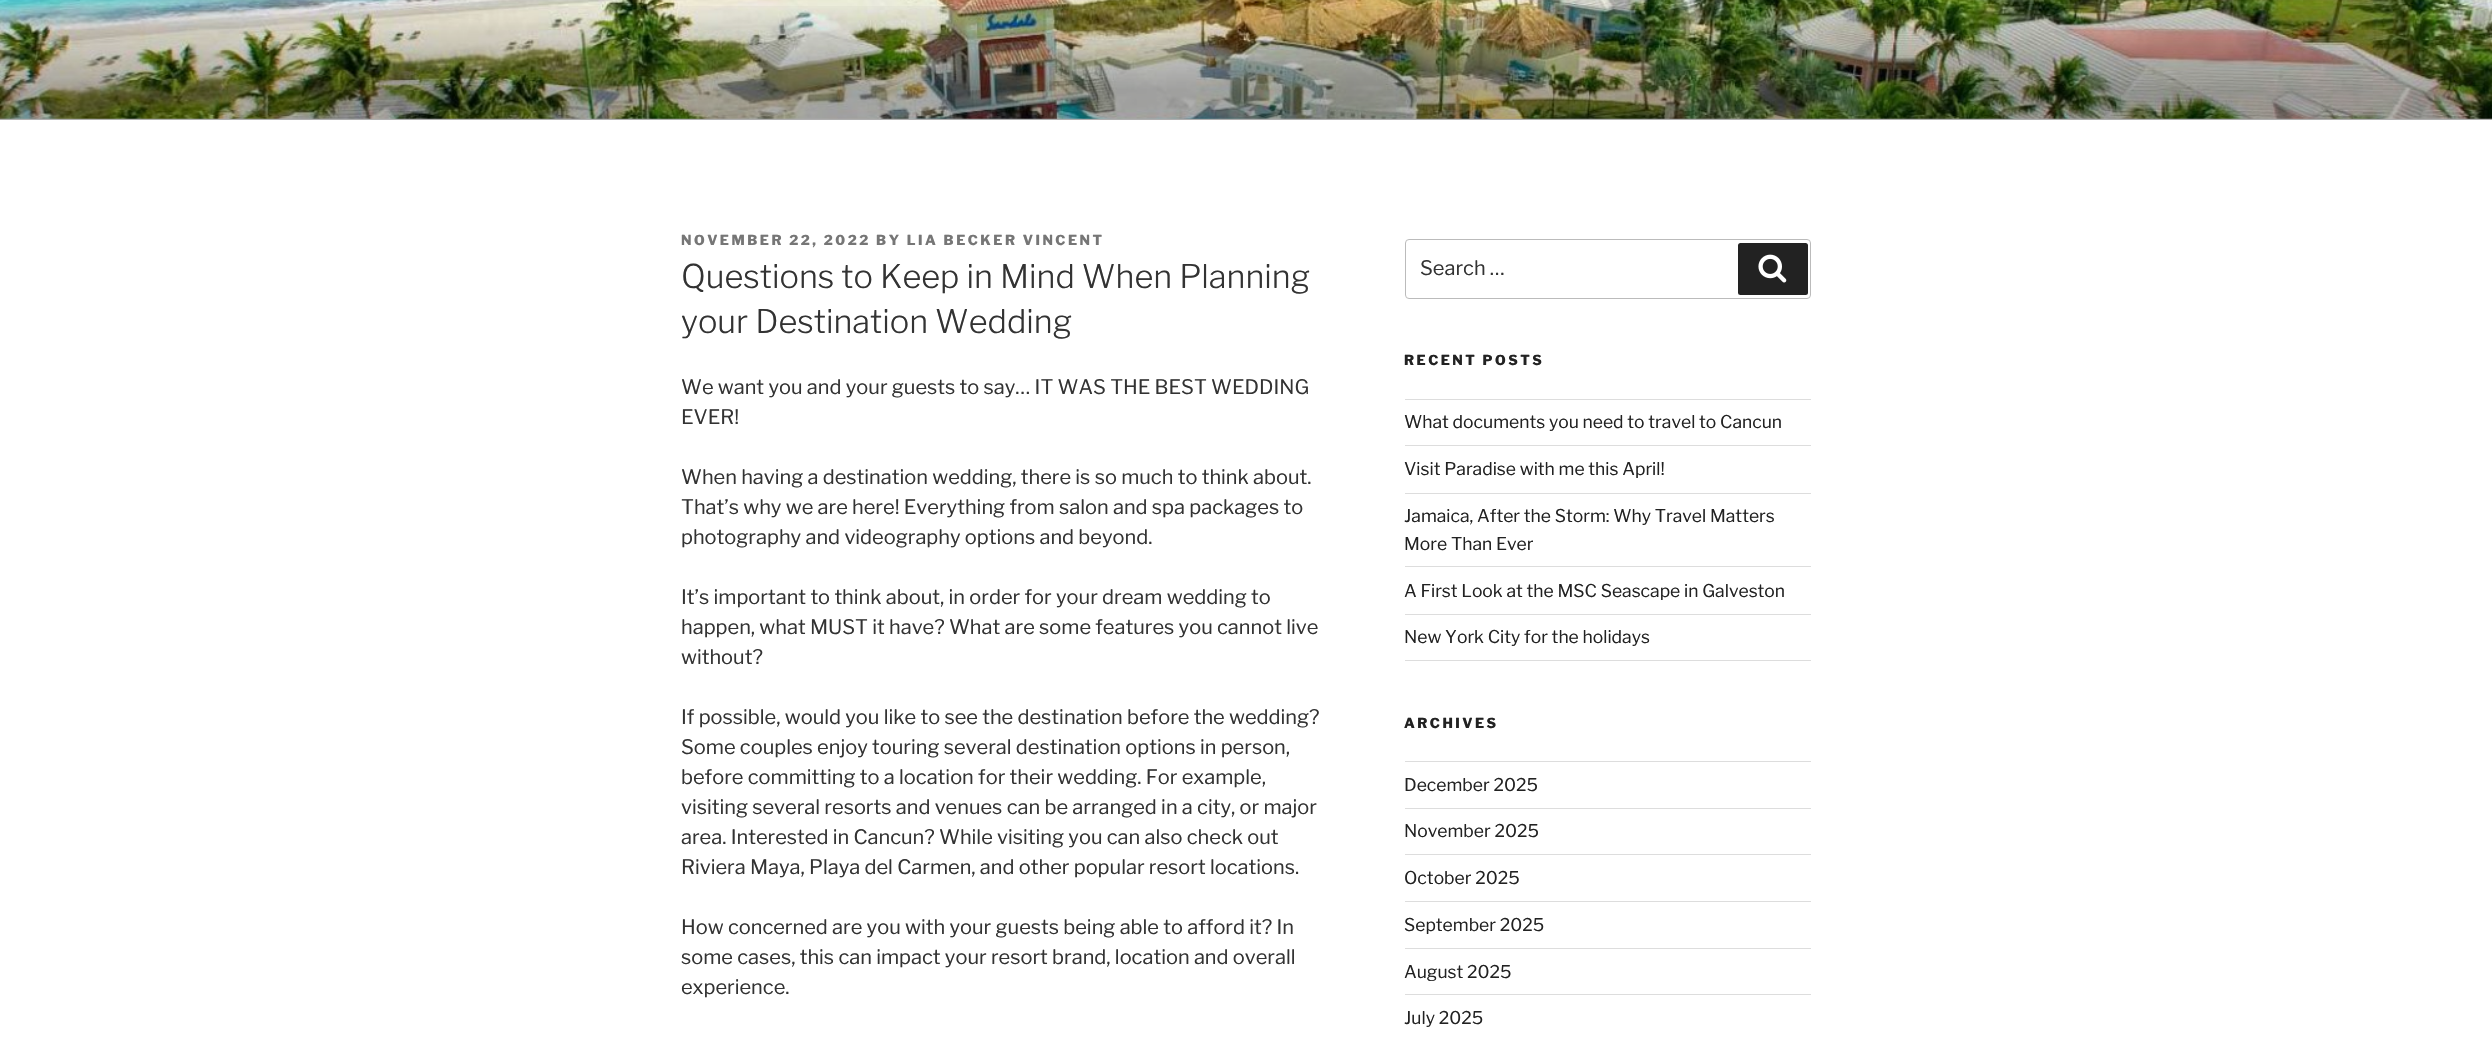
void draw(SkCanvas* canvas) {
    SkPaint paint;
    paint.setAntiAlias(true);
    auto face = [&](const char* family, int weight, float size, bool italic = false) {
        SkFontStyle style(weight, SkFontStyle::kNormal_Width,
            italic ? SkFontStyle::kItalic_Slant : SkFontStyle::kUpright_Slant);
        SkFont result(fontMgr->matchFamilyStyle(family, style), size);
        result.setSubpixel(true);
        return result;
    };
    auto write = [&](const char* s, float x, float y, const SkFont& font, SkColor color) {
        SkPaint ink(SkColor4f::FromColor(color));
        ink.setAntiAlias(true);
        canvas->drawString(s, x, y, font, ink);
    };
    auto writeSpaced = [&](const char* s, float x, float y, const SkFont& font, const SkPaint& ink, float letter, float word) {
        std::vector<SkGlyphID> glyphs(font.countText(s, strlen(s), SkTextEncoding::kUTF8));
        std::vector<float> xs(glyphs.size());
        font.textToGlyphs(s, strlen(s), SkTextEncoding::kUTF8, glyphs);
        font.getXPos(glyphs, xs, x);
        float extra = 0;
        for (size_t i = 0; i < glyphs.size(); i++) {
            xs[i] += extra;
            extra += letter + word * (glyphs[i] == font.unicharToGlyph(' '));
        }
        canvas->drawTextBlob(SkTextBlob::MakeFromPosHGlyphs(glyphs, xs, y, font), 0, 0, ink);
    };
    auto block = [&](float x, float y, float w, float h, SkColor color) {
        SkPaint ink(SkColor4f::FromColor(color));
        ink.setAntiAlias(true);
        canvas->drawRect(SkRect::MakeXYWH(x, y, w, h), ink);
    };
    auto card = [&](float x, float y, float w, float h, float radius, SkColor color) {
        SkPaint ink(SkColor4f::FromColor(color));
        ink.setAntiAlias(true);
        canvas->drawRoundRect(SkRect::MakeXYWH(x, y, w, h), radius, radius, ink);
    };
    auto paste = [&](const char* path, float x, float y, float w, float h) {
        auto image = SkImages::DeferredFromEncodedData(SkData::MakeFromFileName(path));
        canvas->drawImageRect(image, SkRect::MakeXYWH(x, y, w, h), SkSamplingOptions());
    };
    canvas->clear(SK_ColorWHITE);
    block(0, 118, 2492, 2, SkColorSetRGB(250, 250, 250));
    paste("pic1.png", 0, 0, 2492, 119);
    {
        const SkColor colors[] = {SkColorSetARGB(0, 0, 0, 0), SkColorSetARGB(77, 0, 0, 0), SkColorSetARGB(77, 0, 0, 0)};
        const float stops[] = {0, 0.75f, 1};
        const SkPoint ends[] = {{1246, 0}, {1246, 120}};
        paint.setShader(SkGradientShader::MakeLinear(ends, colors, stops, 3, SkTileMode::kClamp));
        paint.setAlpha(255);
    }
    canvas->drawRect(SkRect::MakeXYWH(0, 6, 2492, 114), paint);
    auto kFont1 = face("Libre Franklin", 800, 13.75f);
    paint.setShader(nullptr);
    paint.setColor(SkColorSetRGB(118, 118, 118));
    writeSpaced("NOVEMBER 22, 2022 BY LIA BECKER VINCENT", 681, 245, kFont1, paint, 2.5f, 0);
    auto kFont2 = face("Libre Franklin", 300, 32.5f);
    write("Questions to Keep in Mind When Planning", 681, 288, kFont2, SkColorSetRGB(51, 51, 51));
    write("your Destination Wedding", 681, 333, kFont2, SkColorSetRGB(51, 51, 51));
    auto kFont3 = face("Libre Franklin", 400, 20);
    write("We want you and your guests to say… IT WAS THE BEST WEDDING", 681, 394, kFont3, SkColorSetRGB(51, 51, 51));
    write("EVER!", 681, 424, kFont3, SkColorSetRGB(51, 51, 51));
    write("When having a destination wedding, there is so much to think about.", 681, 484, kFont3, SkColorSetRGB(51, 51, 51));
    write("That’s why we are here! Everything from salon and spa packages to", 681, 514, kFont3, SkColorSetRGB(51, 51, 51));
    write("photography and videography options and beyond.", 681, 544, kFont3, SkColorSetRGB(51, 51, 51));
    write("It’s important to think about, in order for your dream wedding to", 681, 604, kFont3, SkColorSetRGB(51, 51, 51));
    write("happen, what MUST it have? What are some features you cannot live", 681, 634, kFont3, SkColorSetRGB(51, 51, 51));
    write("without?", 681, 664, kFont3, SkColorSetRGB(51, 51, 51));
    write("If possible, would you like to see the destination before the wedding?", 681, 724, kFont3, SkColorSetRGB(51, 51, 51));
    write("Some couples enjoy touring several destination options in person,", 681, 754, kFont3, SkColorSetRGB(51, 51, 51));
    write("before committing to a location for their wedding. For example,", 681, 784, kFont3, SkColorSetRGB(51, 51, 51));
    write("visiting several resorts and venues can be arranged in a city, or major", 681, 814, kFont3, SkColorSetRGB(51, 51, 51));
    write("area. Interested in Cancun? While visiting you can also check out", 681, 844, kFont3, SkColorSetRGB(51, 51, 51));
    write("Riviera Maya, Playa del Carmen, and other popular resort locations.", 681, 874, kFont3, SkColorSetRGB(51, 51, 51));
    write("How concerned are you with your guests being able to afford it? In", 681, 934, kFont3, SkColorSetRGB(51, 51, 51));
    write("some cases, this can impact your resort brand, location and overall", 681, 964, kFont3, SkColorSetRGB(51, 51, 51));
    write("experience.", 681, 994, kFont3, SkColorSetRGB(51, 51, 51));
    paint.setStyle(SkPaint::kStroke_Style);
    paint.setStrokeWidth(1);
    paint.setColor(SkColorSetRGB(187, 187, 187));
    canvas->drawRoundRect(SkRect::MakeXYWH(1405.5f, 239.5f, 405, 59), 3.5f, 3.5f, paint);
    write("Search …", 1420, 275, kFont3, SkColorSetRGB(51, 51, 51));
    card(1738, 243, 70, 52, 2.5f, SkColorSetRGB(34, 34, 34));
    paste("pic2.png", 1758, 254, 29, 29);
    paint.setStyle(SkPaint::kFill_Style);
    paint.setColor(SkColorSetRGB(34, 34, 34));
    writeSpaced("RECENT POSTS", 1404, 365, kFont1, paint, 2.5f, 0);
    block(1405, 399, 406, 1, SkColorSetRGB(221, 221, 221));
    block(1405, 445, 406, 1, SkColorSetRGB(221, 221, 221));
    auto kFont4 = face("Libre Franklin", 400, 17.5f);
    write("What documents you need to travel to Cancun", 1404, 428, kFont4, SkColorSetRGB(34, 34, 34));
    block(1405, 493, 406, 1, SkColorSetRGB(221, 221, 221));
    write("Visit Paradise with me this April!", 1404, 475, kFont4, SkColorSetRGB(34, 34, 34));
    block(1405, 566, 406, 1, SkColorSetRGB(221, 221, 221));
    write("Jamaica, After the Storm: Why Travel Matters", 1404, 522, kFont4, SkColorSetRGB(34, 34, 34));
    write("More Than Ever", 1404, 550, kFont4, SkColorSetRGB(34, 34, 34));
    block(1405, 614, 406, 1, SkColorSetRGB(221, 221, 221));
    write("A First Look at the MSC Seascape in Galveston", 1404, 597, kFont4, SkColorSetRGB(34, 34, 34));
    block(1405, 660, 406, 1, SkColorSetRGB(221, 221, 221));
    write("New York City for the holidays", 1404, 643, kFont4, SkColorSetRGB(34, 34, 34));
    writeSpaced("ARCHIVES", 1404, 728, kFont1, paint, 2.5f, 0);
    block(1405, 761, 406, 1, SkColorSetRGB(221, 221, 221));
    block(1405, 808, 406, 1, SkColorSetRGB(221, 221, 221));
    write("December 2025", 1404, 791, kFont4, SkColorSetRGB(34, 34, 34));
    block(1405, 854, 406, 1, SkColorSetRGB(221, 221, 221));
    write("November 2025", 1404, 837, kFont4, SkColorSetRGB(34, 34, 34));
    block(1405, 901, 406, 1, SkColorSetRGB(221, 221, 221));
    write("October 2025", 1404, 884, kFont4, SkColorSetRGB(34, 34, 34));
    block(1405, 948, 406, 1, SkColorSetRGB(221, 221, 221));
    write("September 2025", 1404, 931, kFont4, SkColorSetRGB(34, 34, 34));
    block(1405, 994, 406, 1, SkColorSetRGB(221, 221, 221));
    write("August 2025", 1404, 978, kFont4, SkColorSetRGB(34, 34, 34));
    write("July 2025", 1404, 1024, kFont4, SkColorSetRGB(34, 34, 34));
}
